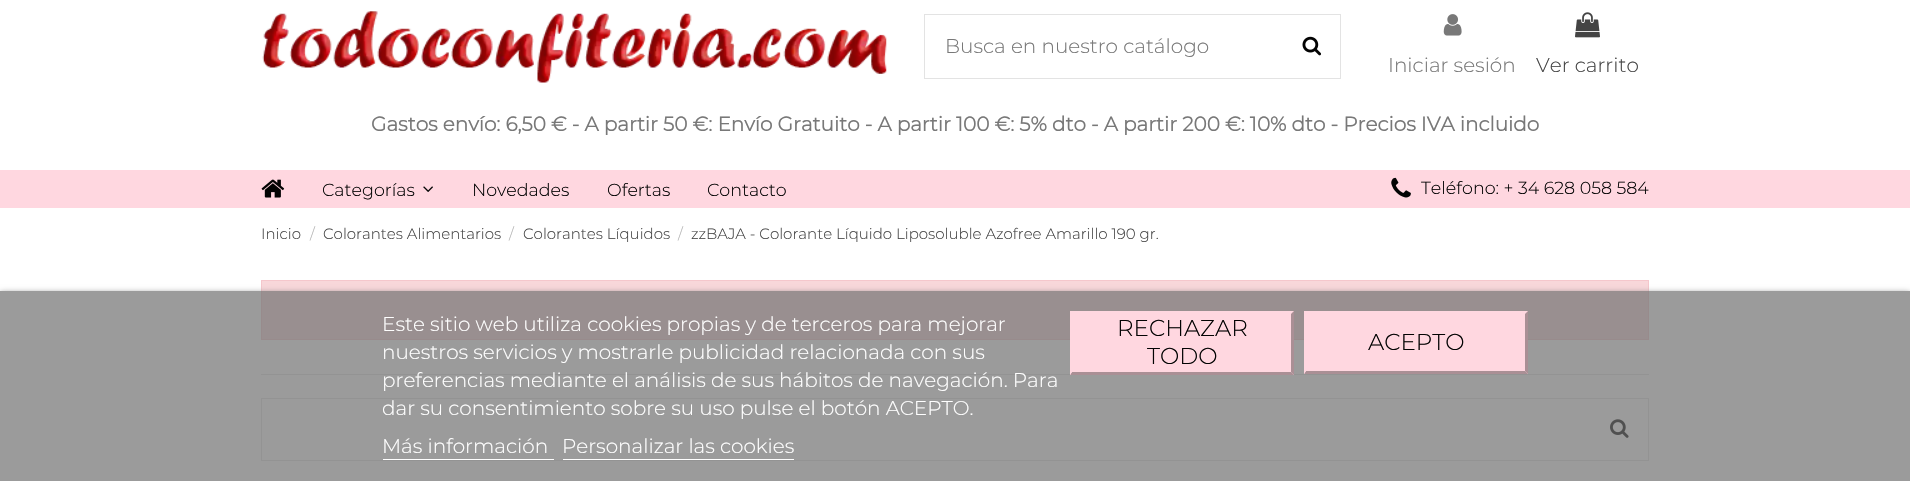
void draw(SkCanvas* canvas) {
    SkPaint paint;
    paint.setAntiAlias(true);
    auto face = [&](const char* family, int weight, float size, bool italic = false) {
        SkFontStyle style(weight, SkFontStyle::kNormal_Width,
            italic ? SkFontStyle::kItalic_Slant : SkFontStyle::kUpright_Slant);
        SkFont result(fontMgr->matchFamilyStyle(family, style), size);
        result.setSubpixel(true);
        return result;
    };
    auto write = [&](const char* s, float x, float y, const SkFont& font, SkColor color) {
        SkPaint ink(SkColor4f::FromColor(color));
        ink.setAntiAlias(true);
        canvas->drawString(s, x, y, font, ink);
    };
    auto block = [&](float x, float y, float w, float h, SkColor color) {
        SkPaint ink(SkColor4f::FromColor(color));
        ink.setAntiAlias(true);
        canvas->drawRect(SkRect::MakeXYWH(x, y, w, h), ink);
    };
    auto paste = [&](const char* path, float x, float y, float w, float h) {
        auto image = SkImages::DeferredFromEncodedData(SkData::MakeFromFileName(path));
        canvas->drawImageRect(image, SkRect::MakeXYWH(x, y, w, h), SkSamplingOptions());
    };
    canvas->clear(SK_ColorWHITE);
    paste("pic1.png", 262, 11, 625, 72);
    paint.setStyle(SkPaint::kStroke_Style);
    paint.setStrokeWidth(1);
    paint.setColor(SkColorSetRGB(227, 227, 227));
    canvas->drawRect(SkRect::MakeXYWH(924.5f, 14.5f, 416, 64), paint);
    auto kFont1 = face("Montserrat", 300, 20);
    write("Busca en nuestro catálogo", 945, 53, kFont1, SkColorSetRGB(120, 120, 120));
    paste("pic2.png", 1302, 36, 19, 20);
    paste("pic3.png", 1443, 14, 19, 22);
    write("Iniciar sesión", 1388, 72, kFont1, SkColorSetRGB(120, 120, 120));
    paste("pic4.png", 1575, 12, 25, 26);
    write("Ver carrito", 1536, 72, kFont1, SkColorSetRGB(68, 68, 68));
    auto kFont2 = face("Montserrat", 700, 20);
    write("Gastos envío: 6,50 € - A partir 50 €: Envío Gratuito - A partir 100 €: 5% dto - A partir 200 €: 10% dto - Precios IVA incluido", 371, 131, kFont2, SkColorSetRGB(120, 120, 120));
    block(0, 170, 1910, 38, SkColorSetRGB(255, 215, 224));
    paste("pic5.png", 261, 179, 24, 19);
    auto kFont3 = face("Montserrat", 300, 17.5f);
    write("Categorías", 322, 196, kFont3, SkColorSetRGB(3, 3, 3));
    paste("pic6.png", 423, 186, 10, 6);
    write("Novedades", 472, 196, kFont3, SkColorSetRGB(3, 3, 3));
    write("Ofertas", 607, 196, kFont3, SkColorSetRGB(3, 3, 3));
    write("Contacto", 707, 196, kFont3, SkColorSetRGB(3, 3, 3));
    paste("pic7.png", 1391, 177, 20, 21);
    write("Teléfono: + 34 628 058 584", 1421, 194, kFont3, SkColorSetRGB(3, 3, 3));
    auto kFont4 = face("Montserrat", 300, 15);
    write("Inicio", 261, 239, kFont4, SkColorSetRGB(68, 68, 68));
    write("/", 310, 239, kFont4, SkColorSetRGB(180, 180, 180));
    write("Colorantes Alimentarios", 323, 239, kFont4, SkColorSetRGB(68, 68, 68));
    write("/", 509, 239, kFont4, SkColorSetRGB(180, 180, 180));
    write("Colorantes Líquidos", 523, 239, kFont4, SkColorSetRGB(68, 68, 68));
    write("/", 678, 239, kFont4, SkColorSetRGB(180, 180, 180));
    write("zzBAJA - Colorante Líquido Liposoluble Azofree Amarillo 190 gr.", 691, 239, kFont4, SkColorSetRGB(68, 68, 68));
    paint.setStyle(SkPaint::kFill_Style);
    paint.setColor(SkColorSetRGB(248, 215, 218));
    canvas->drawRect(SkRect::MakeXYWH(261.5f, 280.5f, 1387, 59), paint);
    paint.setStyle(SkPaint::kStroke_Style);
    paint.setColor(SkColorSetRGB(245, 199, 204));
    canvas->drawRect(SkRect::MakeXYWH(261.5f, 280.5f, 1387, 59), paint);
    block(261, 374, 1388, 1, SkColorSetRGB(227, 227, 227));
    paint.setColor(SkColorSetRGB(227, 227, 227));
    canvas->drawRect(SkRect::MakeXYWH(261.5f, 398.5f, 1387, 62), paint);
    paste("pic8.png", 1610, 419, 19, 19);
    canvas->save();
    canvas->clipPath(SkPathBuilder(SkPathFillType::kEvenOdd).moveTo(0, 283).lineTo(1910, 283).lineTo(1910, 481).lineTo(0, 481).close().moveTo(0, 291).lineTo(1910, 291).lineTo(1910, 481).lineTo(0, 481).close().detach(), true);
    paint.setStyle(SkPaint::kFill_Style);
    paint.setColor(SkColorSetRGB(112, 112, 112));
    paint.setMaskFilter(SkMaskFilter::MakeBlur(kNormal_SkBlurStyle, 3));
    canvas->drawRect(SkRect::MakeXYWH(0, 293, 1910, 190), paint);
    paint.setMaskFilter(nullptr);
    canvas->restore();
    block(0, 291, 1910, 190, SkColorSetARGB(179, 112, 112, 112));
    write("Este sitio web utiliza cookies propias y de terceros para mejorar", 382, 331, kFont1, SK_ColorWHITE);
    write("nuestros servicios y mostrarle publicidad relacionada con sus", 382, 359, kFont1, SK_ColorWHITE);
    write("preferencias mediante el análisis de sus hábitos de navegación. Para", 382, 387, kFont1, SK_ColorWHITE);
    write("dar su consentimiento sobre su uso pulse el botón ACEPTO.", 382, 415, kFont1, SK_ColorWHITE);
    write("Más información", 382, 453, kFont1, SK_ColorWHITE);
    block(383, 459, 171, 1, SK_ColorWHITE);
    write("Personalizar las cookies", 562, 453, kFont1, SK_ColorWHITE);
    block(563, 459, 231, 1, SK_ColorWHITE);
    block(1070, 311, 224, 64, SkColorSetRGB(255, 215, 224));
    paint.setColor(SkColorSetRGB(170, 143, 149));
    canvas->drawPath(SkPathBuilder().moveTo(1294, 311).lineTo(1294, 375).lineTo(1291, 372).lineTo(1291, 314).close().detach(), paint);
    canvas->drawPath(SkPathBuilder().moveTo(1294, 375).lineTo(1070, 375).lineTo(1072, 372).lineTo(1291, 372).close().detach(), paint);
    paint.setColor(SkColorSetRGB(255, 215, 224));
    canvas->drawPath(SkPathBuilder().moveTo(1070, 375).lineTo(1070, 311).lineTo(1072, 314).lineTo(1072, 372).close().detach(), paint);
    auto kFont5 = face("Montserrat", 300, 23);
    write("RECHAZAR", 1117, 336, kFont5, SkColorSetRGB(3, 3, 3));
    write("TODO", 1147, 364, kFont5, SkColorSetRGB(3, 3, 3));
    block(1304, 311, 224, 63, SkColorSetRGB(255, 215, 224));
    paint.setColor(SkColorSetRGB(170, 143, 149));
    canvas->drawPath(SkPathBuilder().moveTo(1528, 311).lineTo(1528, 374).lineTo(1525, 371).lineTo(1525, 314).close().detach(), paint);
    canvas->drawPath(SkPathBuilder().moveTo(1528, 374).lineTo(1304, 374).lineTo(1306, 371).lineTo(1525, 371).close().detach(), paint);
    paint.setColor(SkColorSetRGB(255, 215, 224));
    canvas->drawPath(SkPathBuilder().moveTo(1304, 374).lineTo(1304, 311).lineTo(1306, 314).lineTo(1306, 371).close().detach(), paint);
    write("ACEPTO", 1368, 350, kFont5, SkColorSetRGB(3, 3, 3));
}
